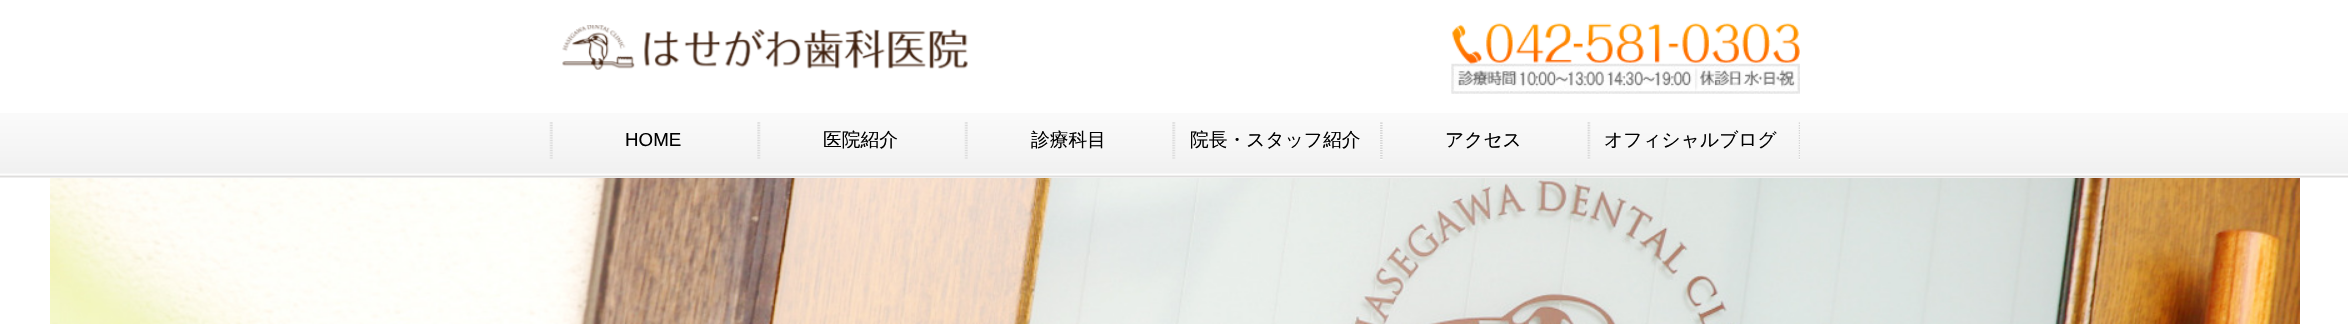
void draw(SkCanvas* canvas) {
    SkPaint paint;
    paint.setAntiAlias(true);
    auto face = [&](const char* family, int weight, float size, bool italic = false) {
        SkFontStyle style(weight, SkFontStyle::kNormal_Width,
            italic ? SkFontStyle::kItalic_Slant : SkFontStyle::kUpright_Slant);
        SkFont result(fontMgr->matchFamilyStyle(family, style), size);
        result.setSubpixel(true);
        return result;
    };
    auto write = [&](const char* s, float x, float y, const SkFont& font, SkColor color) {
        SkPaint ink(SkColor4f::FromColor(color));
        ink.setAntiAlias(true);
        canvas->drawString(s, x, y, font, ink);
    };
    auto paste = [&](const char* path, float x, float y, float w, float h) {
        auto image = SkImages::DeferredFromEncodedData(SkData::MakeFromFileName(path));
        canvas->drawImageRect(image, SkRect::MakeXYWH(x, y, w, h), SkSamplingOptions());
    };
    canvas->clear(SK_ColorWHITE);
    paste("pic1.png", 562, 25, 406, 45);
    paste("pic2.png", 0, 113, 2348, 65);
    paste("pic3.png", 1451, 23, 349, 41);
    paste("pic4.png", 1451, 63, 349, 31);
    paste("pic5.png", 1798, 122, 2, 38);
    paste("pic6.png", 549, 122, 4, 37);
    auto kFont1 = face("Liberation Sans", 400, 18.75f);
    write("HOME", 625, 146, kFont1, SK_ColorBLACK);
    paste("pic7.png", 757, 122, 4, 37);
    auto kFont2 = face("WenQuanYi Zen Hei", 500, 18.75f);
    write("医院紹介", 823, 146, kFont2, SK_ColorBLACK);
    paste("pic6.png", 964, 122, 4, 37);
    write("診療科目", 1031, 146, kFont2, SK_ColorBLACK);
    paste("pic7.png", 1172, 122, 4, 37);
    write("院長・スタッフ紹介", 1190, 146, kFont2, SK_ColorBLACK);
    paste("pic8.png", 1380, 122, 3, 38);
    write("アクセス", 1445, 146, kFont2, SK_ColorBLACK);
    paste("pic9.png", 1587, 122, 4, 38);
    write("オフィシャルブログ", 1604, 146, kFont2, SK_ColorBLACK);
    paste("pic10.png", 50, 178, 2250, 146);
}
